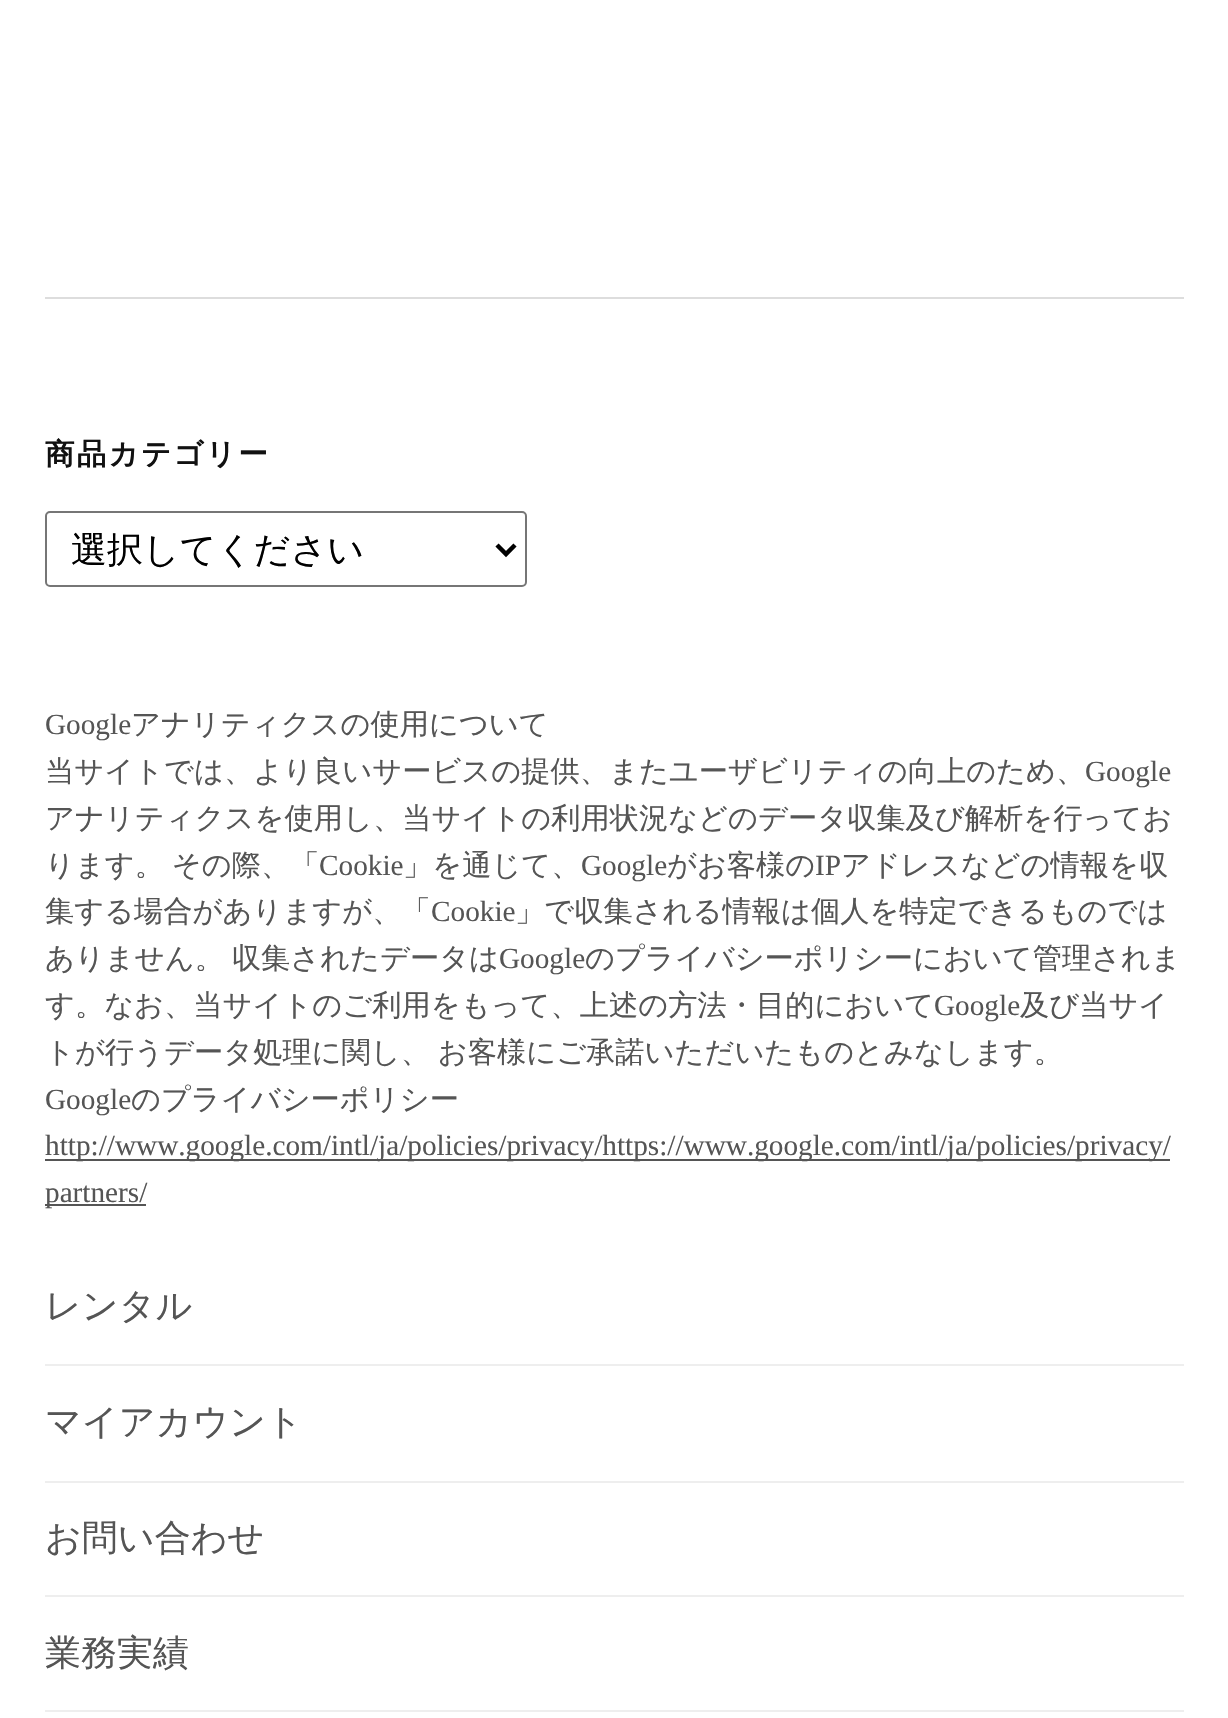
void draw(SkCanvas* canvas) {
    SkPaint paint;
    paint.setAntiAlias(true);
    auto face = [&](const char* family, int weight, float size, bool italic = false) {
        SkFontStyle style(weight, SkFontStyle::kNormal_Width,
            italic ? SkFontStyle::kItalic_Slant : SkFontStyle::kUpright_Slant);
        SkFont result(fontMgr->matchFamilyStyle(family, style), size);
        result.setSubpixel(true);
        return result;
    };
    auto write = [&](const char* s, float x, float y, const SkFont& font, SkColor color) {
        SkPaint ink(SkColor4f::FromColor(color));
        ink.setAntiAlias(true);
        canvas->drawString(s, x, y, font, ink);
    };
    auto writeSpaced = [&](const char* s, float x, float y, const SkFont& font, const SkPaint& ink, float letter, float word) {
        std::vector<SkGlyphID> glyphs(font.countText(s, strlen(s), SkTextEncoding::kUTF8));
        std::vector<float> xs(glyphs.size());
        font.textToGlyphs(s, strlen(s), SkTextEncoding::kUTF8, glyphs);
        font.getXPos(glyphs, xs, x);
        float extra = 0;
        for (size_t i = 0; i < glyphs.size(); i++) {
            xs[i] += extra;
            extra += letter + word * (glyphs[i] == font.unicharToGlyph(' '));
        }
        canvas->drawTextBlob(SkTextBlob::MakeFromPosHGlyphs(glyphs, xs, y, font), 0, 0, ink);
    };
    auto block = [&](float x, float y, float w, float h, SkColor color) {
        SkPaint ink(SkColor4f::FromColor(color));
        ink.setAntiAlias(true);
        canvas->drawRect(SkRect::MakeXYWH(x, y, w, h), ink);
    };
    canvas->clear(SK_ColorWHITE);
    block(45, 297, 1139, 2, SkColorSetRGB(221, 221, 221));
    auto kFont1 = face("WenQuanYi Zen Hei", 700, 29.5f);
    paint.setColor(SkColorSetRGB(17, 17, 17));
    writeSpaced("商品カテゴリー", 45, 464, kFont1, paint, 2.25f, 0);
    paint.setStyle(SkPaint::kStroke_Style);
    paint.setStrokeWidth(2);
    paint.setColor(SkColorSetRGB(118, 118, 118));
    canvas->drawRoundRect(SkRect::MakeXYWH(46, 512, 480, 74), 4, 4, paint);
    paint.setStrokeWidth(4.5f);
    paint.setColor(SK_ColorBLACK);
    canvas->drawPath(SkPathBuilder().moveTo(497, 545).lineTo(506, 554).lineTo(515, 545).detach(), paint);
    auto kFont2 = face("WenQuanYi Zen Hei", 500, 36);
    write("選択してください", 71, 562, kFont2, SK_ColorBLACK);
    auto kFont3 = face("Liberation Serif", 400, 29.25f);
    write("Google", 45, 734, kFont3, SkColorSetRGB(85, 85, 85));
    auto kFont4 = face("WenQuanYi Zen Hei", 500, 29.25f);
    write("アナリティクスの使用について", 131, 734, kFont4, SkColorSetRGB(85, 85, 85));
    write("当サイトでは、より良いサービスの提供、またユーザビリティの向上のため、", 45, 781, kFont4, SkColorSetRGB(85, 85, 85));
    write("Google", 1085, 781, kFont3, SkColorSetRGB(85, 85, 85));
    write("アナリティクスを使用し、当サイトの利用状況などのデータ収集及び解析を行ってお", 45, 828, kFont4, SkColorSetRGB(85, 85, 85));
    paint.setStyle(SkPaint::kFill_Style);
    paint.setColor(SkColorSetRGB(85, 85, 85));
    writeSpaced("ります。 その際、「", 45, 875, kFont4, paint, 0, -1);
    write("Cookie", 319, 875, kFont3, SkColorSetRGB(85, 85, 85));
    write("」を通じて、", 403, 875, kFont4, SkColorSetRGB(85, 85, 85));
    write("Google", 581, 875, kFont3, SkColorSetRGB(85, 85, 85));
    write("がお客様の", 667, 875, kFont4, SkColorSetRGB(85, 85, 85));
    write("IP", 815, 875, kFont3, SkColorSetRGB(85, 85, 85));
    write("アドレスなどの情報を収", 841, 875, kFont4, SkColorSetRGB(85, 85, 85));
    write("集する場合がありますが、「", 45, 921, kFont4, SkColorSetRGB(85, 85, 85));
    write("Cookie", 431, 921, kFont3, SkColorSetRGB(85, 85, 85));
    write("」で収集される情報は個人を特定できるものでは", 515, 921, kFont4, SkColorSetRGB(85, 85, 85));
    writeSpaced("ありません。 収集されたデータは", 45, 968, kFont4, paint, 0, -1);
    write("Google", 499, 968, kFont3, SkColorSetRGB(85, 85, 85));
    write("のプライバシーポリシーにおいて管理されま", 585, 968, kFont4, SkColorSetRGB(85, 85, 85));
    write("す。なお、当サイトのご利用をもって、上述の方法・目的において", 45, 1015, kFont4, SkColorSetRGB(85, 85, 85));
    write("Google", 934, 1015, kFont3, SkColorSetRGB(85, 85, 85));
    write("及び当サイ", 1020, 1015, kFont4, SkColorSetRGB(85, 85, 85));
    writeSpaced("トが行うデータ処理に関し、 お客様にご承諾いただいたものとみなします。", 45, 1062, kFont4, paint, 0, -1);
    write("Google", 45, 1109, kFont3, SkColorSetRGB(85, 85, 85));
    write("のプライバシーポリシー", 131, 1109, kFont4, SkColorSetRGB(85, 85, 85));
    block(45, 1159, 1125, 2, SkColorSetRGB(85, 85, 85));
    write("http://www.google.com/intl/ja/policies/privacy/https://www.google.com/intl/ja/policies/privacy/", 45, 1155, kFont3, SkColorSetRGB(85, 85, 85));
    block(45, 1204, 101, 2, SkColorSetRGB(85, 85, 85));
    write("partners/", 45, 1202, kFont3, SkColorSetRGB(85, 85, 85));
    write("レンタル", 45, 1318, kFont2, SkColorSetRGB(85, 85, 85));
    block(45, 1364, 1139, 2, SkColorSetRGB(238, 238, 238));
    write("マイアカウント", 45, 1434, kFont2, SkColorSetRGB(85, 85, 85));
    block(45, 1481, 1139, 2, SkColorSetRGB(238, 238, 238));
    write("お問い合わせ", 45, 1550, kFont2, SkColorSetRGB(85, 85, 85));
    block(45, 1595, 1139, 2, SkColorSetRGB(238, 238, 238));
    write("業務実績", 45, 1665, kFont2, SkColorSetRGB(85, 85, 85));
    block(45, 1710, 1139, 2, SkColorSetRGB(238, 238, 238));
}
